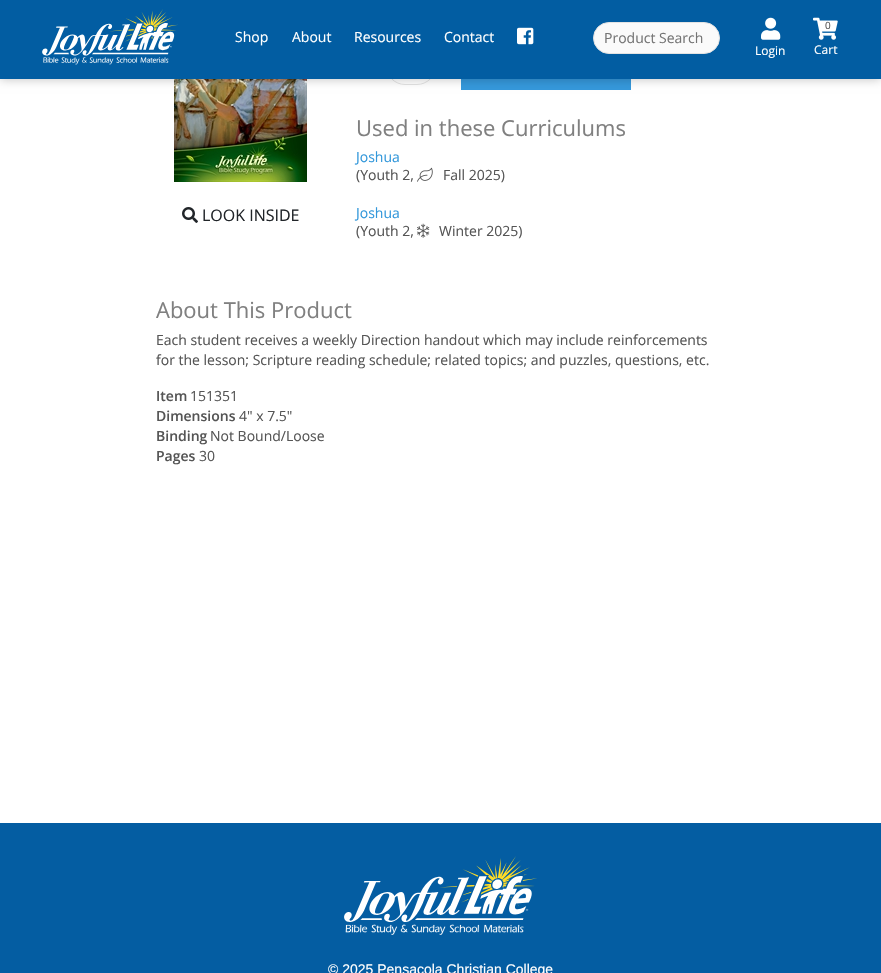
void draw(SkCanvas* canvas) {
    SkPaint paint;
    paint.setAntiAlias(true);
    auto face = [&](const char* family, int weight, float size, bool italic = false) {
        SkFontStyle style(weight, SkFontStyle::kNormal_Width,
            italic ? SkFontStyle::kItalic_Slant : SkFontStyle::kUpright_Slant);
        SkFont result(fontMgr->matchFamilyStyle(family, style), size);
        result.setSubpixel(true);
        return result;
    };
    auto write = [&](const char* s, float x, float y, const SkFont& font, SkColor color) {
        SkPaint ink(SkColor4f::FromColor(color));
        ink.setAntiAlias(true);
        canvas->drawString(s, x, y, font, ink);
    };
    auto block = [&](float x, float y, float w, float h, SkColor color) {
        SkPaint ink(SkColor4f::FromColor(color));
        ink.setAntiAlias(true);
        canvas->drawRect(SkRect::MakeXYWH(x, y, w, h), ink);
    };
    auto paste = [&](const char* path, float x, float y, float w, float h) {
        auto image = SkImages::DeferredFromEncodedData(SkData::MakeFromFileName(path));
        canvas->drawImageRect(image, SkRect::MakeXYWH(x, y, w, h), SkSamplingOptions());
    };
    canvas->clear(SK_ColorWHITE);
    paste("pic5.png", 174, 79, 133, 103);
    paint.setStyle(SkPaint::kStroke_Style);
    paint.setStrokeWidth(1);
    paint.setColor(SkColorSetRGB(227, 227, 227));
    canvas->drawRoundRect(SkRect::MakeXYWH(386.5f, 47.5f, 49, 37), 18.5f, 18.5f, paint);
    block(461, 79, 170, 11, SkColorSetRGB(53, 152, 219));
    paint.setStyle(SkPaint::kFill_Style);
    paint.setColor(SkColorSetARGB(64, 0, 0, 0));
    paint.setMaskFilter(SkMaskFilter::MakeBlur(kNormal_SkBlurStyle, 5));
    canvas->drawRect(SkRect::MakeXYWH(0, 0, 881, 79), paint);
    paint.setMaskFilter(nullptr);
    block(0, 0, 881, 79, SkColorSetRGB(2, 93, 162));
    paste("pic1.png", 42, 9, 136, 56);
    auto kFont1 = face("Open Sans", 400, 14);
    write("Shop", 235, 42, kFont1, SK_ColorWHITE);
    write("About", 292, 42, kFont1, SK_ColorWHITE);
    write("Resources", 354, 42, kFont1, SK_ColorWHITE);
    write("Contact", 444, 42, kFont1, SK_ColorWHITE);
    paste("pic2.png", 517, 27, 17, 18);
    paint.setColor(SkColorSetRGB(250, 250, 250));
    canvas->drawRoundRect(SkRect::MakeXYWH(593.5f, 22.5f, 126, 31), 15.5f, 15.5f, paint);
    paint.setStyle(SkPaint::kStroke_Style);
    paint.setColor(SkColorSetRGB(227, 227, 227));
    canvas->drawRoundRect(SkRect::MakeXYWH(593.5f, 22.5f, 126, 31), 15.5f, 15.5f, paint);
    write("Product Search", 604, 43, kFont1, SkColorSetRGB(117, 117, 117));
    paste("pic3.png", 813, 17, 25, 23);
    auto kFont2 = face("Open Sans", 400, 10);
    write("0", 825, 29, kFont2, SkColorSetRGB(85, 85, 85));
    auto kFont3 = face("Open Sans", 400, 12);
    write("Cart", 814, 54, kFont3, SK_ColorWHITE);
    paste("pic4.png", 761, 17, 20, 23);
    write("Login", 755, 55, kFont3, SK_ColorWHITE);
    paste("pic6.png", 182, 207, 16, 16);
    auto kFont4 = face("Open Sans", 400, 16);
    write("LOOK INSIDE", 202, 221, kFont4, SkColorSetRGB(33, 37, 41));
    auto kFont5 = face("Open Sans", 400, 22);
    write("Used in these Curriculums", 356, 136, kFont5, SkColorSetRGB(128, 128, 128));
    write("Joshua", 356, 162, kFont1, SkColorSetRGB(51, 152, 219));
    write("(Youth 2,", 356, 180, kFont1, SkColorSetRGB(85, 85, 85));
    paste("pic7.png", 417, 167, 16, 15);
    write("Fall 2025)", 443, 180, kFont1, SkColorSetRGB(85, 85, 85));
    write("Joshua", 356, 218, kFont1, SkColorSetRGB(51, 152, 219));
    write("(Youth 2,", 356, 236, kFont1, SkColorSetRGB(85, 85, 85));
    paste("pic8.png", 417, 223, 13, 15);
    write("Winter 2025)", 439, 236, kFont1, SkColorSetRGB(85, 85, 85));
    write("About This Product", 156, 318, kFont5, SkColorSetRGB(128, 128, 128));
    write("Each student receives a weekly Direction handout which may include reinforcements", 156, 345, kFont1, SkColorSetRGB(85, 85, 85));
    write("for the lesson; Scripture reading schedule; related topics; and puzzles, questions, etc.", 156, 365, kFont1, SkColorSetRGB(85, 85, 85));
    auto kFont6 = face("Open Sans", 600, 14);
    write("Item", 156, 401, kFont6, SkColorSetRGB(85, 85, 85));
    write("151351", 190, 401, kFont1, SkColorSetRGB(85, 85, 85));
    write("Dimensions", 156, 421, kFont6, SkColorSetRGB(85, 85, 85));
    write("4\" x 7.5\"", 239, 421, kFont1, SkColorSetRGB(85, 85, 85));
    write("Binding", 156, 441, kFont6, SkColorSetRGB(85, 85, 85));
    write("Not Bound/Loose", 210, 441, kFont1, SkColorSetRGB(85, 85, 85));
    write("Pages", 156, 461, kFont6, SkColorSetRGB(85, 85, 85));
    write("30", 199, 461, kFont1, SkColorSetRGB(85, 85, 85));
    block(0, 823, 881, 150, SkColorSetRGB(4, 93, 162));
    paste("pic9.png", 344, 856, 193, 79);
    auto kFont7 = face("Liberation Sans", 400, 14);
    write("© 2025 Pensacola Christian College", 328, 974, kFont7, SK_ColorWHITE);
}
